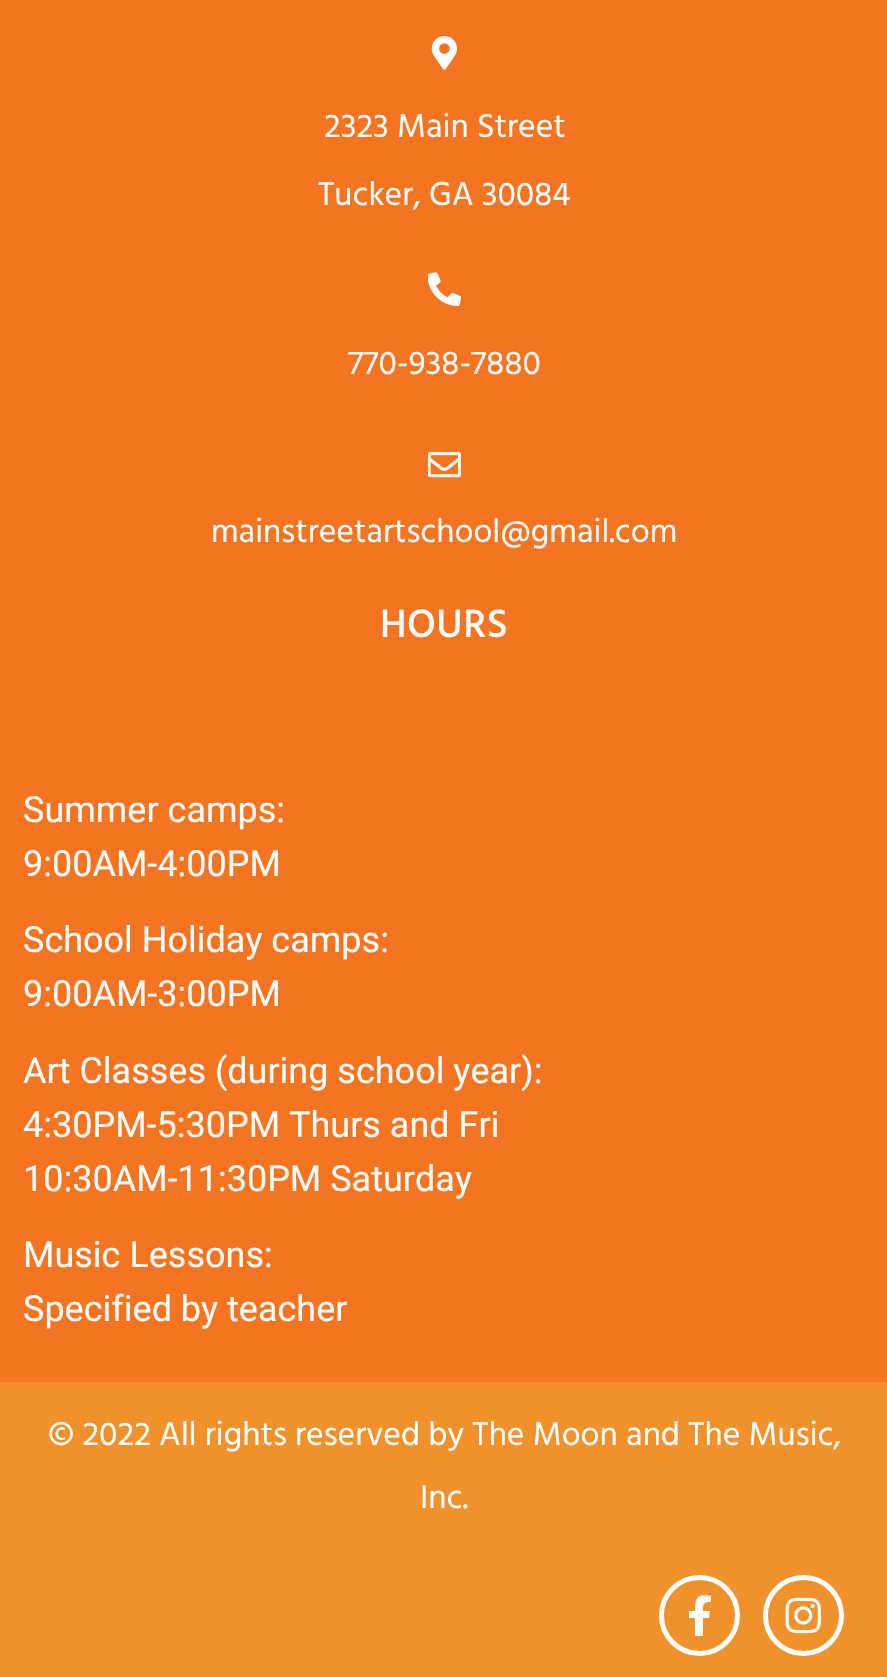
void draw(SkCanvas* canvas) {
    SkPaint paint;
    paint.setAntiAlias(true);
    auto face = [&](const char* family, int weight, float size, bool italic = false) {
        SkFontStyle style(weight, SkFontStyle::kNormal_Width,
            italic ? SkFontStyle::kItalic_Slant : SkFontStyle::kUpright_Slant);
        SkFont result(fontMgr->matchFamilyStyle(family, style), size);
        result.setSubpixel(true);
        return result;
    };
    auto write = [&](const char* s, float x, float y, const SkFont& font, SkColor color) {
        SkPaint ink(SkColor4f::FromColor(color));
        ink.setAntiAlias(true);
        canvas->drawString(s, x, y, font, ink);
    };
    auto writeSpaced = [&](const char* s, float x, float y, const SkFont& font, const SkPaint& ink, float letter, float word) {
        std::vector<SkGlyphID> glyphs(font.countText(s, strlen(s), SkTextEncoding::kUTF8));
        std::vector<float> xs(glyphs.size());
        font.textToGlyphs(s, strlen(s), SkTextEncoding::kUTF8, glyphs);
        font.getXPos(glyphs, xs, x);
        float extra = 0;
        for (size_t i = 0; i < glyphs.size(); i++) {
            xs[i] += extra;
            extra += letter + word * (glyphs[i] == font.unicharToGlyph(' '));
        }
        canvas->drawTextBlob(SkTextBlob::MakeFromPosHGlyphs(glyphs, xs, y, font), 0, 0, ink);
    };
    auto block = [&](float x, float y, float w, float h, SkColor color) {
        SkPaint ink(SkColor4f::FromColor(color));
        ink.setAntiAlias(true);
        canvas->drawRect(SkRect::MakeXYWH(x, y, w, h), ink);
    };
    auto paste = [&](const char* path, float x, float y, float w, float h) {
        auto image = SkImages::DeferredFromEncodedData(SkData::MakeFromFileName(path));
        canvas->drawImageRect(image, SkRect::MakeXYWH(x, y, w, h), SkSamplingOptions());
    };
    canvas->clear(SkColorSetRGB(245, 116, 33));
    paste("pic1.png", 431, 36, 26, 34);
    auto kFont1 = face("Hind", 400, 33.75f);
    write("2323 Main Street", 324, 137, kFont1, SK_ColorWHITE);
    write("Tucker, GA 30084", 318, 205, kFont1, SK_ColorWHITE);
    paste("pic2.png", 428, 272, 33, 34);
    write("770-938-7880", 348, 374, kFont1, SK_ColorWHITE);
    paste("pic3.png", 428, 452, 33, 26);
    write("mainstreetartschool@gmail.com", 211, 542, kFont1, SK_ColorWHITE);
    auto kFont2 = face("Hind", 500, 40.5f);
    paint.setColor(SK_ColorWHITE);
    writeSpaced("HOURS", 380, 637, kFont2, paint, 0.5f, 0);
    auto kFont3 = face("Roboto", 400, 36);
    write("Summer camps:", 23, 822, kFont3, SK_ColorWHITE);
    write("9:00AM-4:00PM", 23, 876, kFont3, SK_ColorWHITE);
    write("School Holiday camps:", 23, 952, kFont3, SK_ColorWHITE);
    write("9:00AM-3:00PM", 23, 1006, kFont3, SK_ColorWHITE);
    write("Art Classes (during school year):", 23, 1083, kFont3, SK_ColorWHITE);
    write("4:30PM-5:30PM Thurs and Fri", 23, 1137, kFont3, SK_ColorWHITE);
    write("10:30AM-11:30PM Saturday", 23, 1191, kFont3, SK_ColorWHITE);
    write("Music Lessons:", 23, 1267, kFont3, SK_ColorWHITE);
    write("Specified by teacher", 23, 1321, kFont3, SK_ColorWHITE);
    block(0, 1382, 887, 295, SkColorSetRGB(241, 145, 43));
    write("© 2022 All rights reserved by The Moon and The Music,", 48, 1445, kFont1, SK_ColorWHITE);
    write("Inc.", 420, 1508, kFont1, SK_ColorWHITE);
    paint.setStyle(SkPaint::kStroke_Style);
    paint.setStrokeWidth(5);
    canvas->drawCircle(699.5f, 1615.5f, 38, paint);
    paint.setStyle(SkPaint::kFill_Style);
    canvas->drawPath(SkPathBuilder().moveTo(709, 1618).lineTo(710, 1611).lineTo(703, 1611).cubicTo(703, 1604, 703, 1602, 711, 1602).lineTo(711, 1596).cubicTo(697, 1593, 695, 1598, 695, 1611).lineTo(689, 1611).lineTo(689, 1618).lineTo(695, 1618).lineTo(695, 1636).lineTo(703, 1636).lineTo(703, 1618).close().detach(), paint);
    paint.setStyle(SkPaint::kStroke_Style);
    canvas->drawCircle(803.5f, 1615.5f, 38, paint);
    paste("pic4.png", 785, 1597, 36, 37);
}
